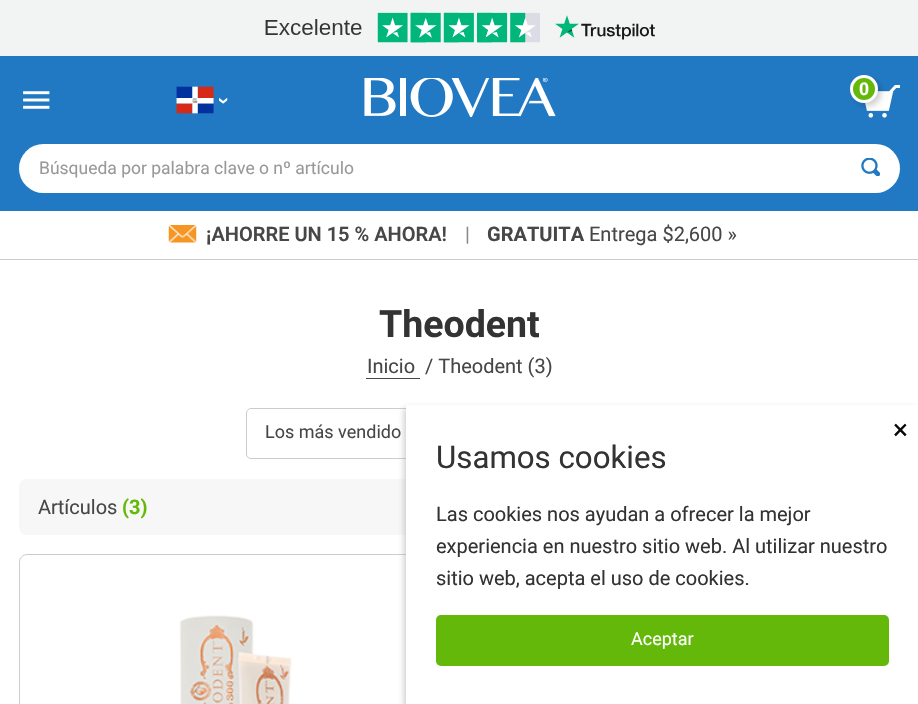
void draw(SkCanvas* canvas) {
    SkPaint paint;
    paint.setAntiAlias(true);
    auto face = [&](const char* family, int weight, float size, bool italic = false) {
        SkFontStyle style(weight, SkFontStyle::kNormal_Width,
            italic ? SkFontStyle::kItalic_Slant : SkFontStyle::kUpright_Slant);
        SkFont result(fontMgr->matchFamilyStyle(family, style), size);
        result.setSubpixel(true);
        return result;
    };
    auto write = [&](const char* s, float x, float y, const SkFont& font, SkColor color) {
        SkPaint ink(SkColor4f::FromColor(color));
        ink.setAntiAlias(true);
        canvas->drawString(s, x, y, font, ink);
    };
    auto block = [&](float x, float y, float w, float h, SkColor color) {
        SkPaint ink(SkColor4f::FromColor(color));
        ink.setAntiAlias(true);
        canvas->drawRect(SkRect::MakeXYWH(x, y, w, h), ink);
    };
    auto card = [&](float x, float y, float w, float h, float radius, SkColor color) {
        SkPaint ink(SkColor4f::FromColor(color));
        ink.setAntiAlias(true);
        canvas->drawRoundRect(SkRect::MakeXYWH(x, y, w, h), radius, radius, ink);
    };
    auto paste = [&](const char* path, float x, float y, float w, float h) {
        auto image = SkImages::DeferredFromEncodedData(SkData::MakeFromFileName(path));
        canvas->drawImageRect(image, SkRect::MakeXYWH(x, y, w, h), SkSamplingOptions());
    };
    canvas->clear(SK_ColorWHITE);
    block(0, 0, 918, 56, SkColorSetRGB(242, 244, 244));
    paste("pic1.png", 265, 12, 390, 31);
    block(0, 56, 918, 155, SkColorSetRGB(34, 121, 195));
    paste("pic2.png", 23, 91, 27, 18);
    paste("pic3.png", 176, 86, 38, 28);
    paste("pic4.png", 219, 98, 9, 6);
    paste("pic5.png", 364, 78, 192, 39);
    paste("pic6.png", 865, 85, 35, 33);
    paint.setColor(SkColorSetARGB(51, 0, 0, 0));
    paint.setMaskFilter(SkMaskFilter::MakeBlur(kNormal_SkBlurStyle, 3));
    canvas->drawRoundRect(SkRect::MakeXYWH(854, 79, 27, 27), 13.5f, 13.5f, paint);
    paint.setMaskFilter(nullptr);
    paint.setColor(SkColorSetRGB(99, 184, 9));
    canvas->drawCircle(864, 89, 12.5f, paint);
    paint.setStyle(SkPaint::kStroke_Style);
    paint.setStrokeWidth(3);
    paint.setColor(SK_ColorWHITE);
    canvas->drawCircle(864, 89, 12.5f, paint);
    auto kFont1 = face("Roboto", 700, 17.5f);
    write("0", 859, 95, kFont1, SK_ColorWHITE);
    card(19, 144, 881, 49, 24.5f, SK_ColorWHITE);
    auto kFont2 = face("Roboto", 400, 17.5f);
    write("Búsqueda por palabra clave o nº artículo", 39, 174, kFont2, SkColorSetRGB(153, 153, 153));
    paste("pic7.png", 861, 158, 19, 18);
    block(0, 259, 918, 1, SkColorSetRGB(204, 204, 204));
    paste("pic8.png", 168, 225, 29, 18);
    auto kFont3 = face("Roboto", 600, 20);
    write("¡AHORRE UN 15 % AHORA!", 206, 241, kFont3, SkColorSetRGB(71, 71, 71));
    auto kFont4 = face("Roboto", 400, 20);
    write("|", 465, 241, kFont4, SkColorSetRGB(138, 138, 138));
    auto kFont5 = face("Roboto", 700, 20);
    write("GRATUITA", 487, 241, kFont5, SkColorSetRGB(71, 71, 71));
    write("Entrega $2,600 »", 589, 241, kFont4, SkColorSetRGB(71, 71, 71));
    paint.setStrokeWidth(1);
    paint.setColor(SkColorSetRGB(204, 204, 204));
    canvas->drawRoundRect(SkRect::MakeXYWH(246.5f, 408.5f, 214, 50), 4.5f, 4.5f, paint);
    card(19, 479, 881, 56, 8, SkColorSetRGB(247, 247, 247));
    canvas->drawRoundRect(SkRect::MakeXYWH(19.5f, 554.5f, 434, 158), 7.5f, 7.5f, paint);
    paint.setStyle(SkPaint::kFill_Style);
    paint.setColor(SkColorSetARGB(128, 156, 156, 156));
    paint.setMaskFilter(SkMaskFilter::MakeBlur(kNormal_SkBlurStyle, 3));
    canvas->drawRect(SkRect::MakeXYWH(404, 408, 512, 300), paint);
    paint.setMaskFilter(nullptr);
    block(406, 405, 512, 299, SK_ColorWHITE);
    auto kFont6 = face("Roboto", 400, 28);
    write("×", 893, 439, kFont6, SkColorSetRGB(10, 10, 10));
    auto kFont7 = face("Roboto", 400, 31.25f);
    write("Usamos cookies", 436, 468, kFont7, SkColorSetRGB(51, 51, 51));
    write("Las cookies nos ayudan a ofrecer la mejor", 436, 521, kFont4, SkColorSetRGB(51, 51, 51));
    write("experiencia en nuestro sitio web. Al utilizar nuestro", 436, 553, kFont4, SkColorSetRGB(51, 51, 51));
    write("sitio web, acepta el uso de cookies.", 436, 585, kFont4, SkColorSetRGB(51, 51, 51));
    card(436, 615, 453, 51, 5, SkColorSetRGB(99, 184, 9));
    auto kFont8 = face("Roboto", 400, 18);
    write("Aceptar", 631, 645, kFont8, SK_ColorWHITE);
    auto kFont9 = face("Roboto", 700, 37.5f);
    write("Theodent", 379, 337, kFont9, SkColorSetRGB(51, 51, 51));
    write("Inicio", 367, 373, kFont4, SkColorSetRGB(71, 71, 71));
    block(366, 378, 54, 1, SkColorSetRGB(71, 71, 71));
    write("/ Theodent (3)", 425, 373, kFont4, SkColorSetRGB(71, 71, 71));
    write("Los más vendido", 265, 438, kFont8, SkColorSetRGB(71, 71, 71));
    write("Artículos", 38, 514, kFont4, SkColorSetRGB(71, 71, 71));
    write("(3)", 122, 514, kFont5, SkColorSetRGB(99, 184, 9));
    paste("pic9.png", 179, 615, 113, 89);
}
